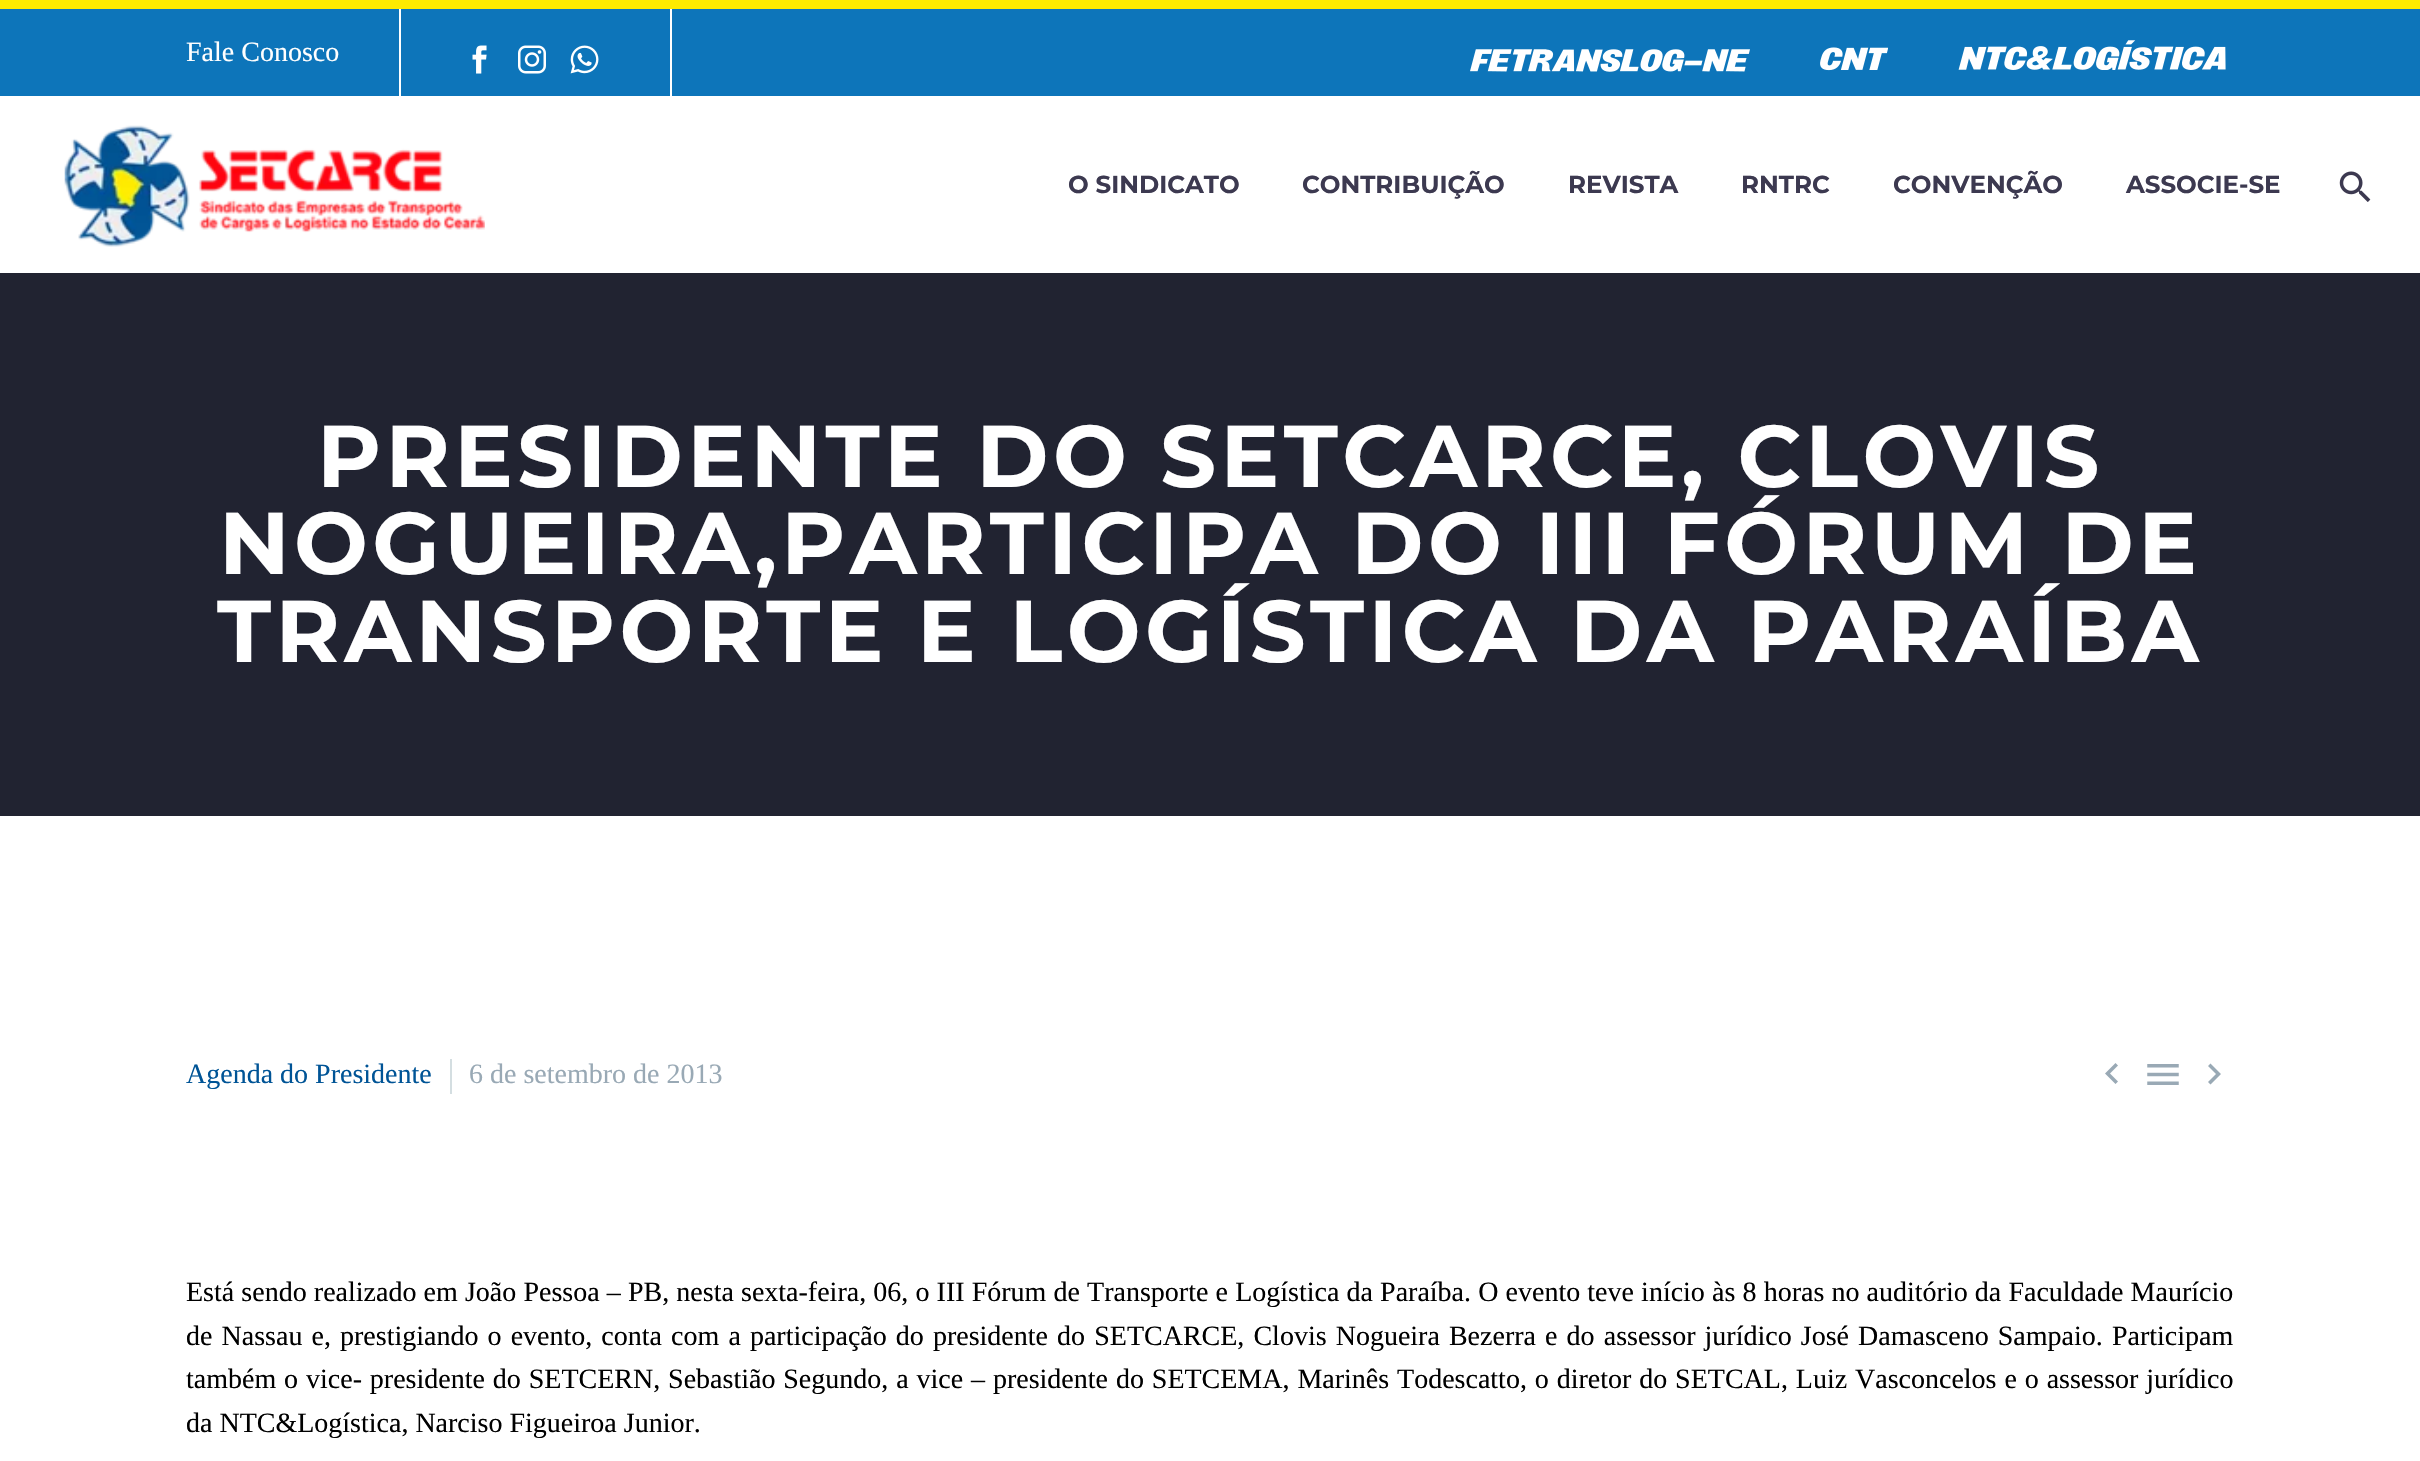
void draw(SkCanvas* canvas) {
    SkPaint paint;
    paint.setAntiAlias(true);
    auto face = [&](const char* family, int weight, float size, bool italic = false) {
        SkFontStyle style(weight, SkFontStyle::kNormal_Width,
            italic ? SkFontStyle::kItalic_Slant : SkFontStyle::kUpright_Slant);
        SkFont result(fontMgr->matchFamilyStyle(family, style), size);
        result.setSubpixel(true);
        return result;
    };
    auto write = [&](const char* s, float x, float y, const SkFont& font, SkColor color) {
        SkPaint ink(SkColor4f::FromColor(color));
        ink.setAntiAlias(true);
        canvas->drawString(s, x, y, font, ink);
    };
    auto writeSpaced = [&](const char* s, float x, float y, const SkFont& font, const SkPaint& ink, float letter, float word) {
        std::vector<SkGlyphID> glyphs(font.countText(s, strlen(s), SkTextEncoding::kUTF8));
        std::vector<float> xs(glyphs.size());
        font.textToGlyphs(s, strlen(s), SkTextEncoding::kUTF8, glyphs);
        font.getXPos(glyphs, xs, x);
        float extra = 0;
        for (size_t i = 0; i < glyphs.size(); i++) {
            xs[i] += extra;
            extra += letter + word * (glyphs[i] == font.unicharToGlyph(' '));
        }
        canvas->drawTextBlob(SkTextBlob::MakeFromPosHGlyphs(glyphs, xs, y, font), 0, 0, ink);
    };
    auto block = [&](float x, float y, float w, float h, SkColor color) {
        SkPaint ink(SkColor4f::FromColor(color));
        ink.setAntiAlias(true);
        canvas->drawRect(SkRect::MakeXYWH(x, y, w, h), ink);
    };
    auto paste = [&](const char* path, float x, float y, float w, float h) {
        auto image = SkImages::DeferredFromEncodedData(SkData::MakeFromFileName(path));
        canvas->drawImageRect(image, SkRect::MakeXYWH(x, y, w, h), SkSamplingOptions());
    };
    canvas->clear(SK_ColorWHITE);
    block(0, 9, 2420, 87, SkColorSetRGB(13, 117, 186));
    block(0, 0, 2420, 9, SkColorSetRGB(254, 235, 0));
    auto kFont1 = face("Liberation Serif", 400, 28);
    write("Fale Conosco", 186, 61, kFont1, SK_ColorWHITE);
    block(399, 9, 2, 87, SK_ColorWHITE);
    paste("pic1.png", 472, 45, 15, 29);
    paste("pic2.png", 518, 45, 28, 29);
    paste("pic3.png", 570, 45, 29, 29);
    block(670, 9, 2, 87, SK_ColorWHITE);
    paste("pic4.png", 1470, 49, 280, 23);
    paste("pic5.png", 1820, 47, 68, 24);
    paste("pic6.png", 1958, 40, 268, 30);
    paste("pic7.png", 64, 125, 421, 122);
    auto kFont2 = face("Montserrat", 700, 24.5f);
    write("O SINDICATO", 1068, 193, kFont2, SkColorSetRGB(60, 57, 80));
    write("CONTRIBUIÇÃO", 1302, 193, kFont2, SkColorSetRGB(60, 57, 80));
    write("REVISTA", 1568, 193, kFont2, SkColorSetRGB(60, 57, 80));
    write("RNTRC", 1741, 193, kFont2, SkColorSetRGB(60, 57, 80));
    write("CONVENÇÃO", 1893, 193, kFont2, SkColorSetRGB(60, 57, 80));
    write("ASSOCIE-SE", 2126, 193, kFont2, SkColorSetRGB(60, 57, 80));
    paste("pic8.png", 2339, 171, 32, 31);
    block(0, 273, 2420, 543, SkColorSetRGB(33, 35, 49));
    auto kFont3 = face("Montserrat", 700, 87.5f);
    paint.setColor(SK_ColorWHITE);
    writeSpaced("PRESIDENTE DO SETCARCE, CLOVIS", 317, 487, kFont3, paint, 4.4f, 0);
    writeSpaced("NOGUEIRA,PARTICIPA DO III FÓRUM DE", 219, 574, kFont3, paint, 4.4f, 0);
    writeSpaced("TRANSPORTE E LOGÍSTICA DA PARAÍBA", 217, 662, kFont3, paint, 4.4f, 0);
    write("Agenda do Presidente", 186, 1083, kFont1, SkColorSetRGB(0, 84, 150));
    block(450, 1059, 2, 35, SkColorSetRGB(212, 222, 225));
    write("6 de setembro de 2013", 469, 1083, kFont1, SkColorSetRGB(153, 169, 181));
    paint.setColor(SkColorSetRGB(153, 169, 181));
    canvas->drawPath(SkPathBuilder().moveTo(2118, 1081.5f).lineTo(2110, 1073.5f).lineTo(2118, 1065.5f).lineTo(2115.5f, 1063).lineTo(2105, 1073.5f).lineTo(2115.5f, 1084).close().detach(), paint);
    paste("pic9.png", 2147, 1064, 32, 21);
    canvas->drawPath(SkPathBuilder().moveTo(2208, 1082).lineTo(2216, 1074).lineTo(2208, 1066).lineTo(2210.5f, 1063.5f).lineTo(2221, 1074).lineTo(2210.5f, 1084.5f).close().detach(), paint);
    paint.setColor(SK_ColorBLACK);
    writeSpaced("Está sendo realizado em João Pessoa – PB, nesta sexta-feira, 06, o III Fórum de Transporte e Logística da Paraíba. O evento teve início às 8 horas no auditório da Faculdade Maurício", 186, 1301, kFont1, paint, 0, 0.15f);
    writeSpaced("de Nassau e, prestigiando o evento, conta com a participação do presidente do SETCARCE, Clovis Nogueira Bezerra e do assessor jurídico José Damasceno Sampaio. Participam", 186, 1345, kFont1, paint, 0, 2.1f);
    writeSpaced("também o vice- presidente do SETCERN, Sebastião Segundo, a vice – presidente do SETCEMA, Marinês Todescatto, o diretor do SETCAL, Luiz Vasconcelos e o assessor jurídico", 186, 1388, kFont1, paint, 0, 0.9f);
    write("da NTC&Logística, Narciso Figueiroa Junior.", 186, 1432, kFont1, SK_ColorBLACK);
}
